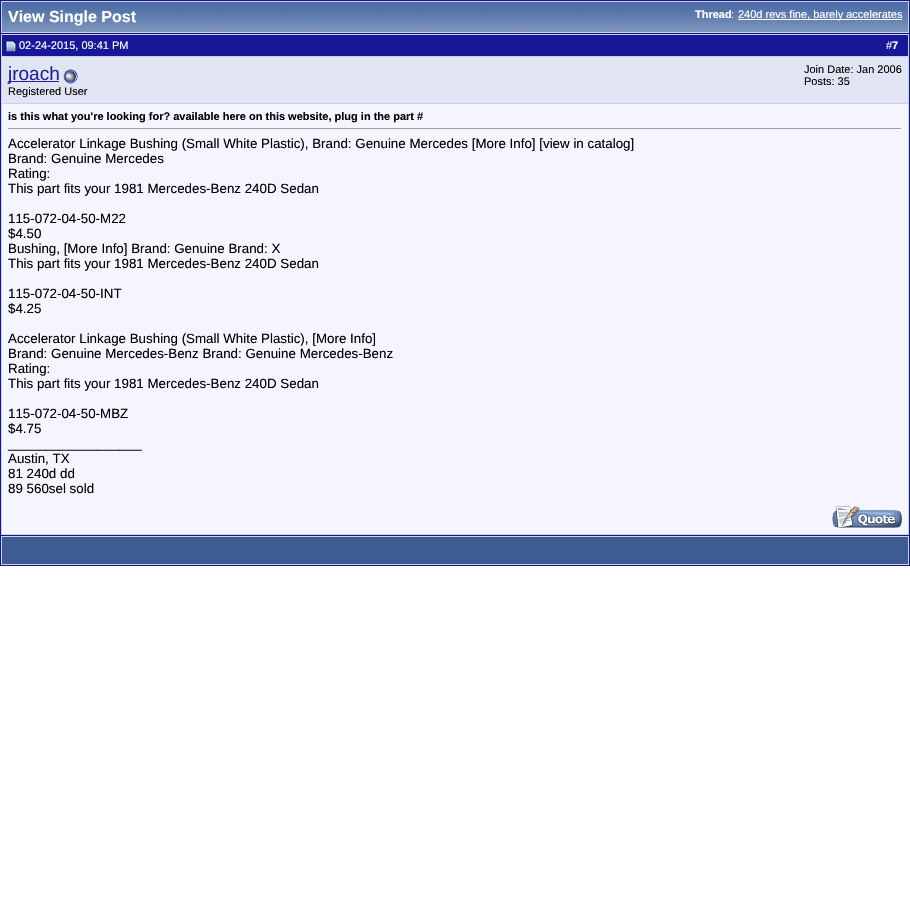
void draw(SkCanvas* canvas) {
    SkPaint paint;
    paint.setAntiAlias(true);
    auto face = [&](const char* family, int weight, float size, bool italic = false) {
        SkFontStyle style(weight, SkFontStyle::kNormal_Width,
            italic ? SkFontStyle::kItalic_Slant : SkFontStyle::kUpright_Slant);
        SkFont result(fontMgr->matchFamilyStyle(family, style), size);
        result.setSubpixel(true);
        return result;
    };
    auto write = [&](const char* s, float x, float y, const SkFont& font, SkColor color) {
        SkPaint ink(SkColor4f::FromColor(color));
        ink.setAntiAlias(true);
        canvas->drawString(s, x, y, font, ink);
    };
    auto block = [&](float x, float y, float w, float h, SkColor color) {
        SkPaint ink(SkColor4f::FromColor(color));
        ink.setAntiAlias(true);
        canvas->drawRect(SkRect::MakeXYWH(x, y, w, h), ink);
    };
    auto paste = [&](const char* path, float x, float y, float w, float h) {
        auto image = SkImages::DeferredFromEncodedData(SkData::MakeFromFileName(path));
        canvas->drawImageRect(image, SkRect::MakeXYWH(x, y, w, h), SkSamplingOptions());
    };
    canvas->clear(SK_ColorWHITE);
    block(1, 1, 908, 32, SkColorSetRGB(209, 209, 225));
    block(0, 0, 910, 1, SkColorSetRGB(11, 25, 140));
    block(909, 0, 1, 33, SkColorSetRGB(11, 25, 140));
    block(0, 0, 1, 33, SkColorSetRGB(11, 25, 140));
    paste("pic1.png", 2, 2, 906, 30);
    auto kFont1 = face("Liberation Sans", 700, 16);
    write("View Single Post", 8, 22, kFont1, SK_ColorWHITE);
    auto kFont2 = face("Liberation Sans", 700, 11);
    write("Thread", 695, 18, kFont2, SK_ColorWHITE);
    auto kFont3 = face("Liberation Sans", 400, 11);
    write(":", 731, 18, kFont3, SK_ColorWHITE);
    block(738, 19, 164, 1, SK_ColorWHITE);
    write("240d revs fine, barely accelerates", 738, 18, kFont3, SK_ColorWHITE);
    paint.setColor(SkColorSetRGB(209, 209, 225));
    canvas->drawRect(SkRect::MakeXYWH(0.5f, 33.5f, 909, 502), paint);
    paint.setStyle(SkPaint::kStroke_Style);
    paint.setStrokeWidth(1);
    paint.setColor(SkColorSetRGB(11, 25, 140));
    canvas->drawRect(SkRect::MakeXYWH(0.5f, 33.5f, 909, 502), paint);
    block(2, 35, 906, 21, SkColorSetRGB(23, 23, 151));
    paste("pic2.png", 6, 41, 10, 11);
    write("02-24-2015, 09:41 PM", 19, 49, kFont3, SK_ColorWHITE);
    write("#", 886, 49, kFont3, SK_ColorWHITE);
    write("7", 892, 49, kFont2, SK_ColorWHITE);
    block(2, 57, 906, 46, SkColorSetRGB(225, 228, 242));
    block(8, 81, 51, 1, SkColorSetRGB(34, 34, 156));
    auto kFont4 = face("Liberation Sans", 400, 19);
    write("jroach", 8, 80, kFont4, SkColorSetRGB(34, 34, 156));
    paste("pic3.png", 63, 69, 15, 15);
    write("Registered User", 8, 95, kFont3, SK_ColorBLACK);
    write("Join Date: Jan 2006", 804, 73, kFont3, SK_ColorBLACK);
    write("Posts: 35", 804, 85, kFont3, SK_ColorBLACK);
    block(2, 104, 906, 430, SkColorSetRGB(245, 245, 255));
    write("is this what you're looking for? available here on this website, plug in the part #", 8, 120, kFont2, SK_ColorBLACK);
    block(8, 128, 894, 1, SkColorSetRGB(159, 159, 159));
    block(901, 128, 1, 1, SkColorSetRGB(238, 238, 238));
    auto kFont5 = face("Liberation Sans", 400, 13.35f);
    write("Accelerator Linkage Bushing (Small White Plastic), Brand: Genuine Mercedes [More Info] [view in catalog]", 8, 148, kFont5, SK_ColorBLACK);
    write("Brand: Genuine Mercedes", 8, 163, kFont5, SK_ColorBLACK);
    write("Rating:", 8, 178, kFont5, SK_ColorBLACK);
    write("This part fits your 1981 Mercedes-Benz 240D Sedan", 8, 193, kFont5, SK_ColorBLACK);
    write("115-072-04-50-M22", 8, 223, kFont5, SK_ColorBLACK);
    write("$4.50", 8, 238, kFont5, SK_ColorBLACK);
    write("Bushing, [More Info] Brand: Genuine Brand: X", 8, 253, kFont5, SK_ColorBLACK);
    write("This part fits your 1981 Mercedes-Benz 240D Sedan", 8, 268, kFont5, SK_ColorBLACK);
    write("115-072-04-50-INT", 8, 298, kFont5, SK_ColorBLACK);
    write("$4.25", 8, 313, kFont5, SK_ColorBLACK);
    write("Accelerator Linkage Bushing (Small White Plastic), [More Info]", 8, 343, kFont5, SK_ColorBLACK);
    write("Brand: Genuine Mercedes-Benz Brand: Genuine Mercedes-Benz", 8, 358, kFont5, SK_ColorBLACK);
    write("Rating:", 8, 373, kFont5, SK_ColorBLACK);
    write("This part fits your 1981 Mercedes-Benz 240D Sedan", 8, 388, kFont5, SK_ColorBLACK);
    write("115-072-04-50-MBZ", 8, 418, kFont5, SK_ColorBLACK);
    write("$4.75", 8, 433, kFont5, SK_ColorBLACK);
    write("__________________", 8, 448, kFont5, SK_ColorBLACK);
    write("Austin, TX", 8, 463, kFont5, SK_ColorBLACK);
    write("81 240d dd", 8, 478, kFont5, SK_ColorBLACK);
    write("89 560sel sold", 8, 493, kFont5, SK_ColorBLACK);
    paste("pic4.png", 832, 506, 70, 22);
    block(1, 536, 908, 29, SkColorSetRGB(209, 209, 225));
    block(909, 536, 1, 30, SkColorSetRGB(11, 25, 140));
    block(0, 565, 910, 1, SkColorSetRGB(11, 25, 140));
    block(0, 536, 1, 30, SkColorSetRGB(11, 25, 140));
    block(2, 537, 906, 27, SkColorSetRGB(62, 92, 146));
}
